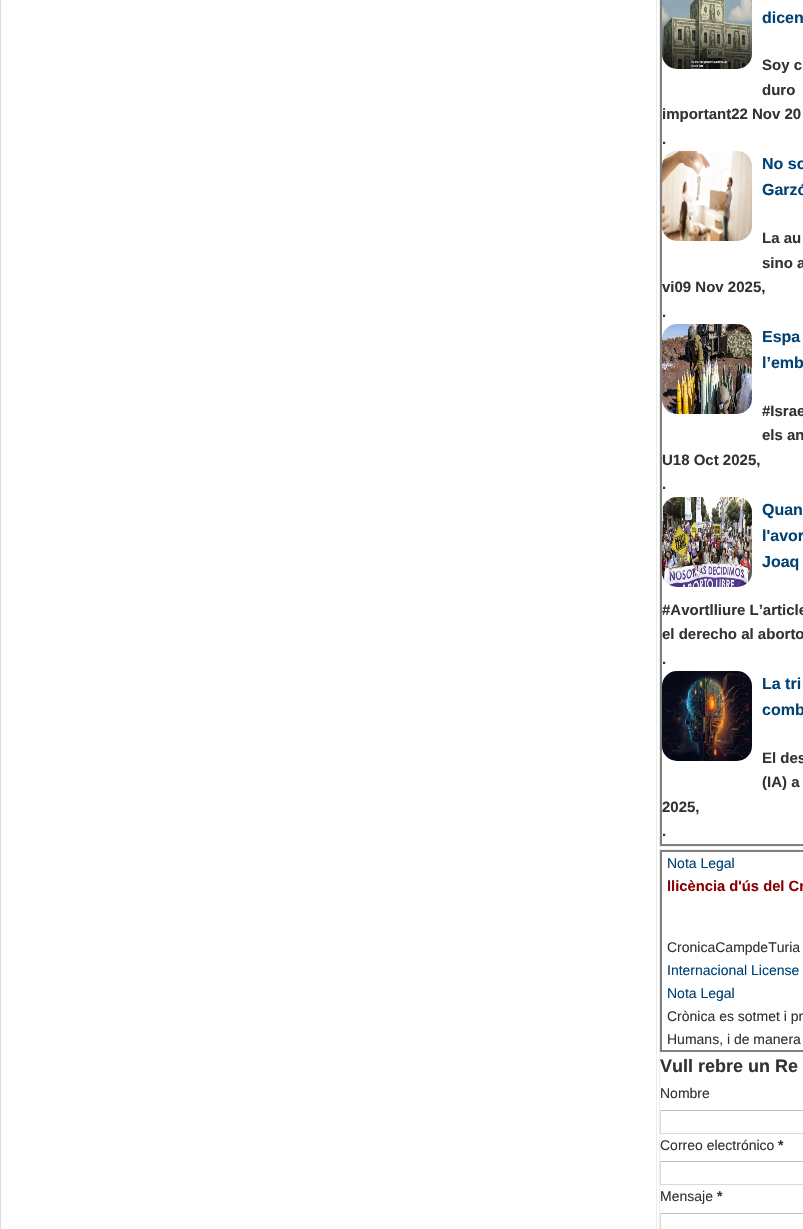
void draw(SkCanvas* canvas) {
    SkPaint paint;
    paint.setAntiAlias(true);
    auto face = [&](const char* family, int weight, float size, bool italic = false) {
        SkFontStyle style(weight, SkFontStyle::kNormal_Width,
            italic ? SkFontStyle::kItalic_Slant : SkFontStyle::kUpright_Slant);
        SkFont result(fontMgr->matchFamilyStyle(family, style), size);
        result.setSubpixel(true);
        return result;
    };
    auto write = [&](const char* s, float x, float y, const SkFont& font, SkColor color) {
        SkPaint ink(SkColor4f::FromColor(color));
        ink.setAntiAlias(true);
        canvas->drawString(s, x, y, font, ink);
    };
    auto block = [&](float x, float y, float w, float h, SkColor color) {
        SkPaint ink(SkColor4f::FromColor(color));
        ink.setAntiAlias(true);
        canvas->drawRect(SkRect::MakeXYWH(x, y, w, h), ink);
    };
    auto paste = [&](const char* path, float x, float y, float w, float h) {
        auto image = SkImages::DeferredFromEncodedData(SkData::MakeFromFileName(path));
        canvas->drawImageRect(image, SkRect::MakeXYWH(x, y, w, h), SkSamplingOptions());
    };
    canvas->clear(SK_ColorWHITE);
    paint.setStyle(SkPaint::kStroke_Style);
    paint.setStrokeWidth(1);
    paint.setColor(SkColorSetRGB(221, 221, 221));
    canvas->drawRect(SkRect::MakeXYWH(0.5f, -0.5f, 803, 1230), paint);
    paint.setColor(SkColorSetRGB(236, 237, 232));
    canvas->drawRect(SkRect::MakeXYWH(656.5f, -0.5f, 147, 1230), paint);
    canvas->drawRect(SkRect::MakeXYWH(659.5f, -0.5f, 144, 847), paint);
    paint.setStrokeWidth(2);
    paint.setColor(SkColorSetRGB(128, 128, 128));
    canvas->drawRect(SkRect::MakeXYWH(661, -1, 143, 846), paint);
    paste("pic1.png", 662, 0, 90, 69);
    auto kFont1 = face("Liberation Sans", 700, 16);
    write("dicen", 762, 23, kFont1, SkColorSetRGB(0, 66, 118));
    auto kFont2 = face("Liberation Sans", 700, 15);
    write("Soy c", 762, 70, kFont2, SkColorSetRGB(51, 51, 51));
    write("duro", 762, 95, kFont2, SkColorSetRGB(51, 51, 51));
    write("important22 Nov 20", 662, 119, kFont2, SkColorSetRGB(51, 51, 51));
    write(".", 662, 144, kFont2, SkColorSetRGB(51, 51, 51));
    paste("pic2.png", 662, 151, 90, 90);
    write("No so", 762, 169, kFont1, SkColorSetRGB(0, 66, 118));
    write("Garzó", 762, 195, kFont1, SkColorSetRGB(0, 66, 118));
    write("La au", 762, 243, kFont2, SkColorSetRGB(51, 51, 51));
    write("sino a", 762, 268, kFont2, SkColorSetRGB(51, 51, 51));
    write("vi09 Nov 2025,", 662, 292, kFont2, SkColorSetRGB(51, 51, 51));
    write(".", 662, 317, kFont2, SkColorSetRGB(51, 51, 51));
    paste("pic3.png", 662, 324, 90, 90);
    write("Espa", 762, 342, kFont1, SkColorSetRGB(0, 66, 118));
    write("l’emb", 762, 368, kFont1, SkColorSetRGB(0, 66, 118));
    write("#Israe", 762, 416, kFont2, SkColorSetRGB(51, 51, 51));
    write("els an", 762, 440, kFont2, SkColorSetRGB(51, 51, 51));
    write("U18 Oct 2025,", 662, 465, kFont2, SkColorSetRGB(51, 51, 51));
    write(".", 662, 489, kFont2, SkColorSetRGB(51, 51, 51));
    paste("pic4.png", 662, 497, 90, 90);
    write("Quan", 762, 515, kFont1, SkColorSetRGB(0, 66, 118));
    write("l'avor", 762, 541, kFont1, SkColorSetRGB(0, 66, 118));
    write("Joaq", 762, 567, kFont1, SkColorSetRGB(0, 66, 118));
    write("#Avortlliure L’article", 662, 615, kFont2, SkColorSetRGB(51, 51, 51));
    write("el derecho al aborto", 662, 639, kFont2, SkColorSetRGB(51, 51, 51));
    write(".", 662, 664, kFont2, SkColorSetRGB(51, 51, 51));
    paste("pic5.png", 662, 671, 90, 90);
    write("La tri", 762, 689, kFont1, SkColorSetRGB(0, 66, 118));
    write("comb", 762, 715, kFont1, SkColorSetRGB(0, 66, 118));
    write("El des", 762, 763, kFont2, SkColorSetRGB(51, 51, 51));
    write("(IA) a", 762, 787, kFont2, SkColorSetRGB(51, 51, 51));
    write("2025,", 662, 812, kFont2, SkColorSetRGB(51, 51, 51));
    write(".", 662, 836, kFont2, SkColorSetRGB(51, 51, 51));
    paint.setStrokeWidth(1);
    paint.setColor(SkColorSetRGB(236, 237, 232));
    canvas->drawRect(SkRect::MakeXYWH(659.5f, 849.5f, 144, 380), paint);
    paint.setStrokeWidth(2);
    paint.setColor(SkColorSetRGB(128, 128, 128));
    canvas->drawRect(SkRect::MakeXYWH(661, 851, 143, 200), paint);
    auto kFont3 = face("Liberation Sans", 400, 14);
    write("Nota Legal", 667, 868, kFont3, SkColorSetRGB(0, 66, 118));
    auto kFont4 = face("Liberation Sans", 700, 14.75f);
    write("llicència d'ús del Cr", 667, 891, kFont4, SkColorSetRGB(139, 0, 0));
    write("CronicaCampdeTuria", 667, 952, kFont3, SkColorSetRGB(51, 51, 51));
    write("Internacional License", 667, 975, kFont3, SkColorSetRGB(0, 66, 118));
    write("Nota Legal", 667, 998, kFont3, SkColorSetRGB(0, 66, 118));
    write("Crònica es sotmet i pr", 667, 1021, kFont3, SkColorSetRGB(51, 51, 51));
    write("Humans, i de manera", 667, 1044, kFont3, SkColorSetRGB(51, 51, 51));
    auto kFont5 = face("Liberation Sans", 700, 18);
    write("Vull rebre un Re", 660, 1072, kFont5, SkColorSetRGB(51, 51, 51));
    write("Nombre", 660, 1098, kFont3, SkColorSetRGB(51, 51, 51));
    block(660, 1110, 143, 1, SkColorSetRGB(192, 192, 192));
    block(660, 1133, 143, 1, SkColorSetRGB(217, 217, 217));
    block(660, 1110, 1, 24, SkColorSetRGB(217, 217, 217));
    write("Correo electrónico", 660, 1150, kFont3, SkColorSetRGB(51, 51, 51));
    auto kFont6 = face("Liberation Sans", 700, 14);
    write("*", 778, 1150, kFont6, SkColorSetRGB(51, 51, 51));
    block(660, 1161, 143, 1, SkColorSetRGB(192, 192, 192));
    block(660, 1184, 143, 1, SkColorSetRGB(217, 217, 217));
    block(660, 1161, 1, 24, SkColorSetRGB(217, 217, 217));
    write("Mensaje", 660, 1201, kFont3, SkColorSetRGB(51, 51, 51));
    write("*", 717, 1201, kFont6, SkColorSetRGB(51, 51, 51));
    block(660, 1213, 143, 1, SkColorSetRGB(192, 192, 192));
    block(660, 1213, 1, 16, SkColorSetRGB(217, 217, 217));
}
